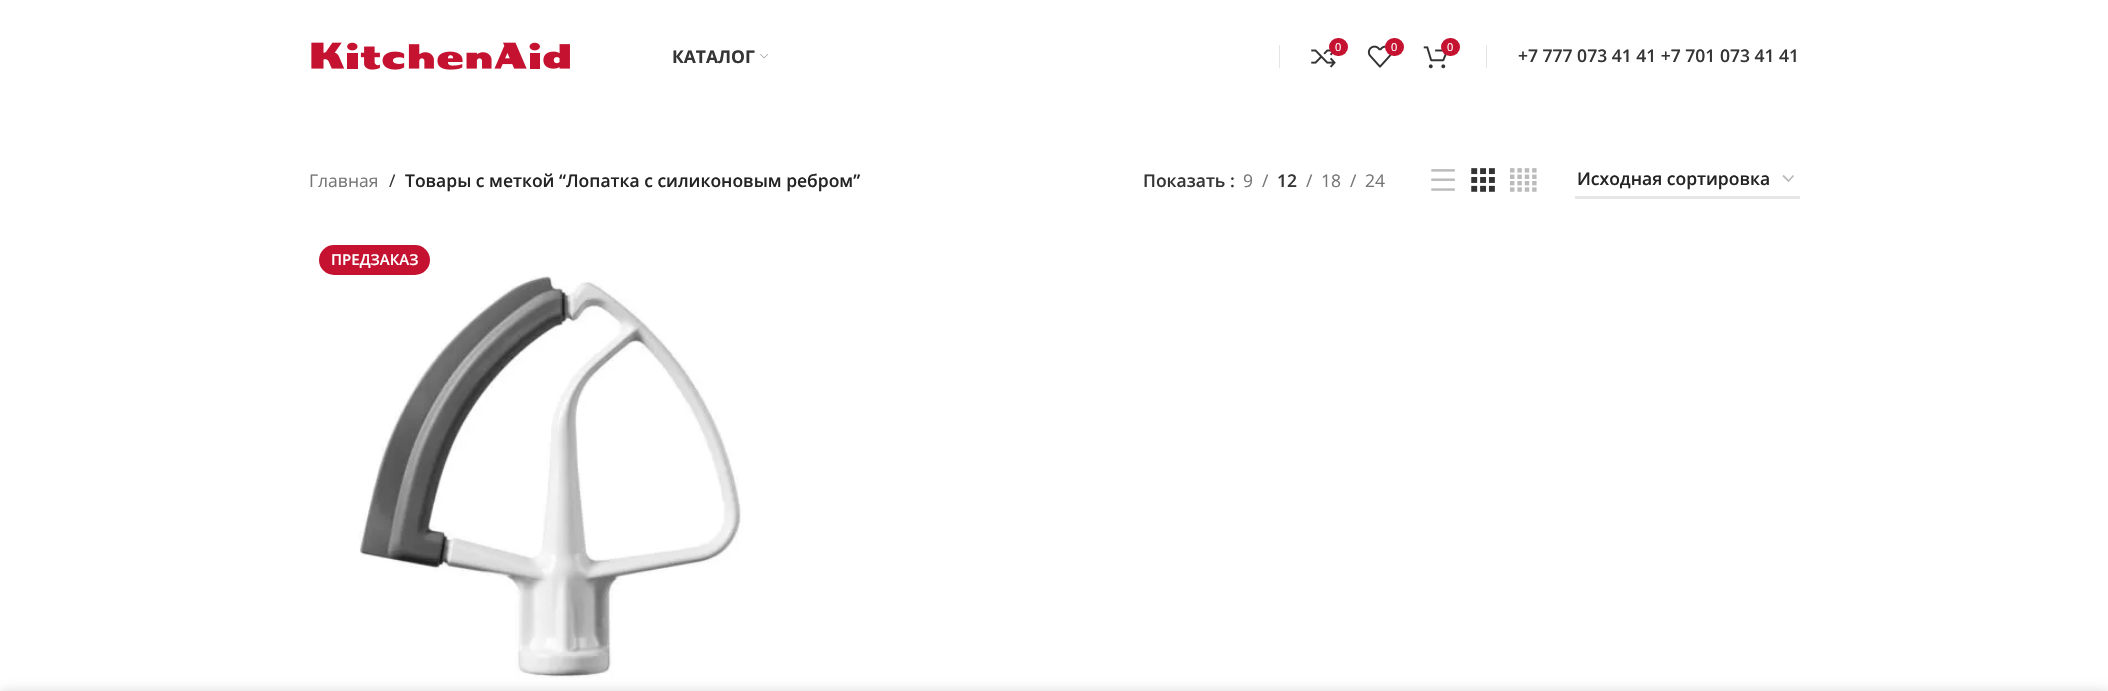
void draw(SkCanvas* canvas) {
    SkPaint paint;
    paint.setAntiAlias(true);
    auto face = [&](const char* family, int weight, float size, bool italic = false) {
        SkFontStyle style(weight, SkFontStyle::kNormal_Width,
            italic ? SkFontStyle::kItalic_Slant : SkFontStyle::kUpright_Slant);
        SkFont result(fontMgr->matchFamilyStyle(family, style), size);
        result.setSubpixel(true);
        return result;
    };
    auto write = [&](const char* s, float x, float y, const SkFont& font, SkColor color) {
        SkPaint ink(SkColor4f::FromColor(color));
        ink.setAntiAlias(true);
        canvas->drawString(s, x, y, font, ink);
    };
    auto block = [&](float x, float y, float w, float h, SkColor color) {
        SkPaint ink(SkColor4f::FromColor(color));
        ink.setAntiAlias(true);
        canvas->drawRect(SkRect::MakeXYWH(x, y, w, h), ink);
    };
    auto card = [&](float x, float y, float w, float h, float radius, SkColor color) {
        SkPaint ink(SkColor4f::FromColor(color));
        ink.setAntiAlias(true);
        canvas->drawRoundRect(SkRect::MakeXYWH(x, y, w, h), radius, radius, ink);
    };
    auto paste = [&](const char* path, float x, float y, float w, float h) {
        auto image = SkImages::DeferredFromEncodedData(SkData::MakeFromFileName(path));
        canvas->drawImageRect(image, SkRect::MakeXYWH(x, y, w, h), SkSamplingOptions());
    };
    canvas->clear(SK_ColorWHITE);
    paste("pic1.png", 311, 42, 259, 28);
    auto kFont1 = face("Open Sans", 700, 17.5f);
    write("КАТАЛОГ", 672, 63, kFont1, SkColorSetRGB(53, 53, 53));
    paste("pic2.png", 760, 54, 8, 5);
    block(1279, 45, 1, 23, SkColorSetRGB(228, 228, 228));
    paste("pic3.png", 1311, 49, 25, 19);
    card(1329, 38, 19, 18, 9, SkColorSetRGB(196, 18, 48));
    auto kFont2 = face("Open Sans", 400, 11);
    write("0", 1335, 51, kFont2, SK_ColorWHITE);
    paste("pic4.png", 1367, 45, 25, 23);
    card(1385, 38, 19, 18, 9, SkColorSetRGB(196, 18, 48));
    write("0", 1391, 51, kFont2, SK_ColorWHITE);
    paste("pic5.png", 1423, 46, 24, 23);
    card(1441, 38, 19, 18, 9, SkColorSetRGB(196, 18, 48));
    write("0", 1447, 51, kFont2, SK_ColorWHITE);
    block(1486, 45, 1, 23, SkColorSetRGB(228, 228, 228));
    auto kFont3 = face("Open Sans", 600, 17.5f);
    write("+7 777 073 41 41 +7 701 073 41 41", 1518, 62, kFont3, SkColorSetRGB(53, 53, 53));
    auto kFont4 = face("Open Sans", 400, 17.5f);
    write("Главная", 309, 187, kFont4, SkColorSetRGB(118, 118, 118));
    write("/", 389, 187, kFont4, SkColorSetRGB(53, 53, 53));
    write("Товары с меткой “Лопатка с силиконовым ребром”", 405, 187, kFont3, SkColorSetRGB(36, 36, 36));
    write("Показать :", 1143, 187, kFont3, SkColorSetRGB(53, 53, 53));
    write("9", 1243, 187, kFont4, SkColorSetRGB(118, 118, 118));
    write("/", 1262, 187, kFont4, SkColorSetRGB(118, 118, 118));
    write("12", 1277, 187, kFont3, SkColorSetRGB(53, 53, 53));
    write("/", 1306, 187, kFont4, SkColorSetRGB(118, 118, 118));
    write("18", 1321, 187, kFont4, SkColorSetRGB(118, 118, 118));
    write("/", 1350, 187, kFont4, SkColorSetRGB(118, 118, 118));
    write("24", 1365, 187, kFont4, SkColorSetRGB(118, 118, 118));
    paste("pic6.png", 1431, 169, 24, 22);
    paste("pic7.png", 1471, 168, 24, 24);
    paste("pic8.png", 1510, 168, 27, 24);
    paint.setStyle(SkPaint::kStroke_Style);
    paint.setStrokeWidth(1.8f);
    paint.setColor(SkColorSetRGB(187, 187, 187));
    canvas->drawPath(SkPathBuilder().moveTo(1783, 175.5f).lineTo(1788.5f, 181).lineTo(1793.5f, 175.5f).detach(), paint);
    block(1575, 196, 225, 3, SkColorSetRGB(230, 230, 230));
    write("Исходная сортировка", 1577, 185, kFont3, SkColorSetRGB(36, 36, 36));
    card(319, 245, 111, 30, 15, SkColorSetRGB(196, 18, 48));
    auto kFont5 = face("Open Sans", 600, 15);
    write("ПРЕДЗАКАЗ", 331, 265, kFont5, SK_ColorWHITE);
    paste("pic9.png", 359, 276, 384, 402);
    paint.setStyle(SkPaint::kFill_Style);
    paint.setColor(SkColorSetARGB(36, 0, 0, 0));
    paint.setMaskFilter(SkMaskFilter::MakeBlur(kNormal_SkBlurStyle, 5.5f));
    canvas->drawRect(SkRect::MakeXYWH(0, 691, 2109, 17), paint);
    paint.setMaskFilter(nullptr);
}
